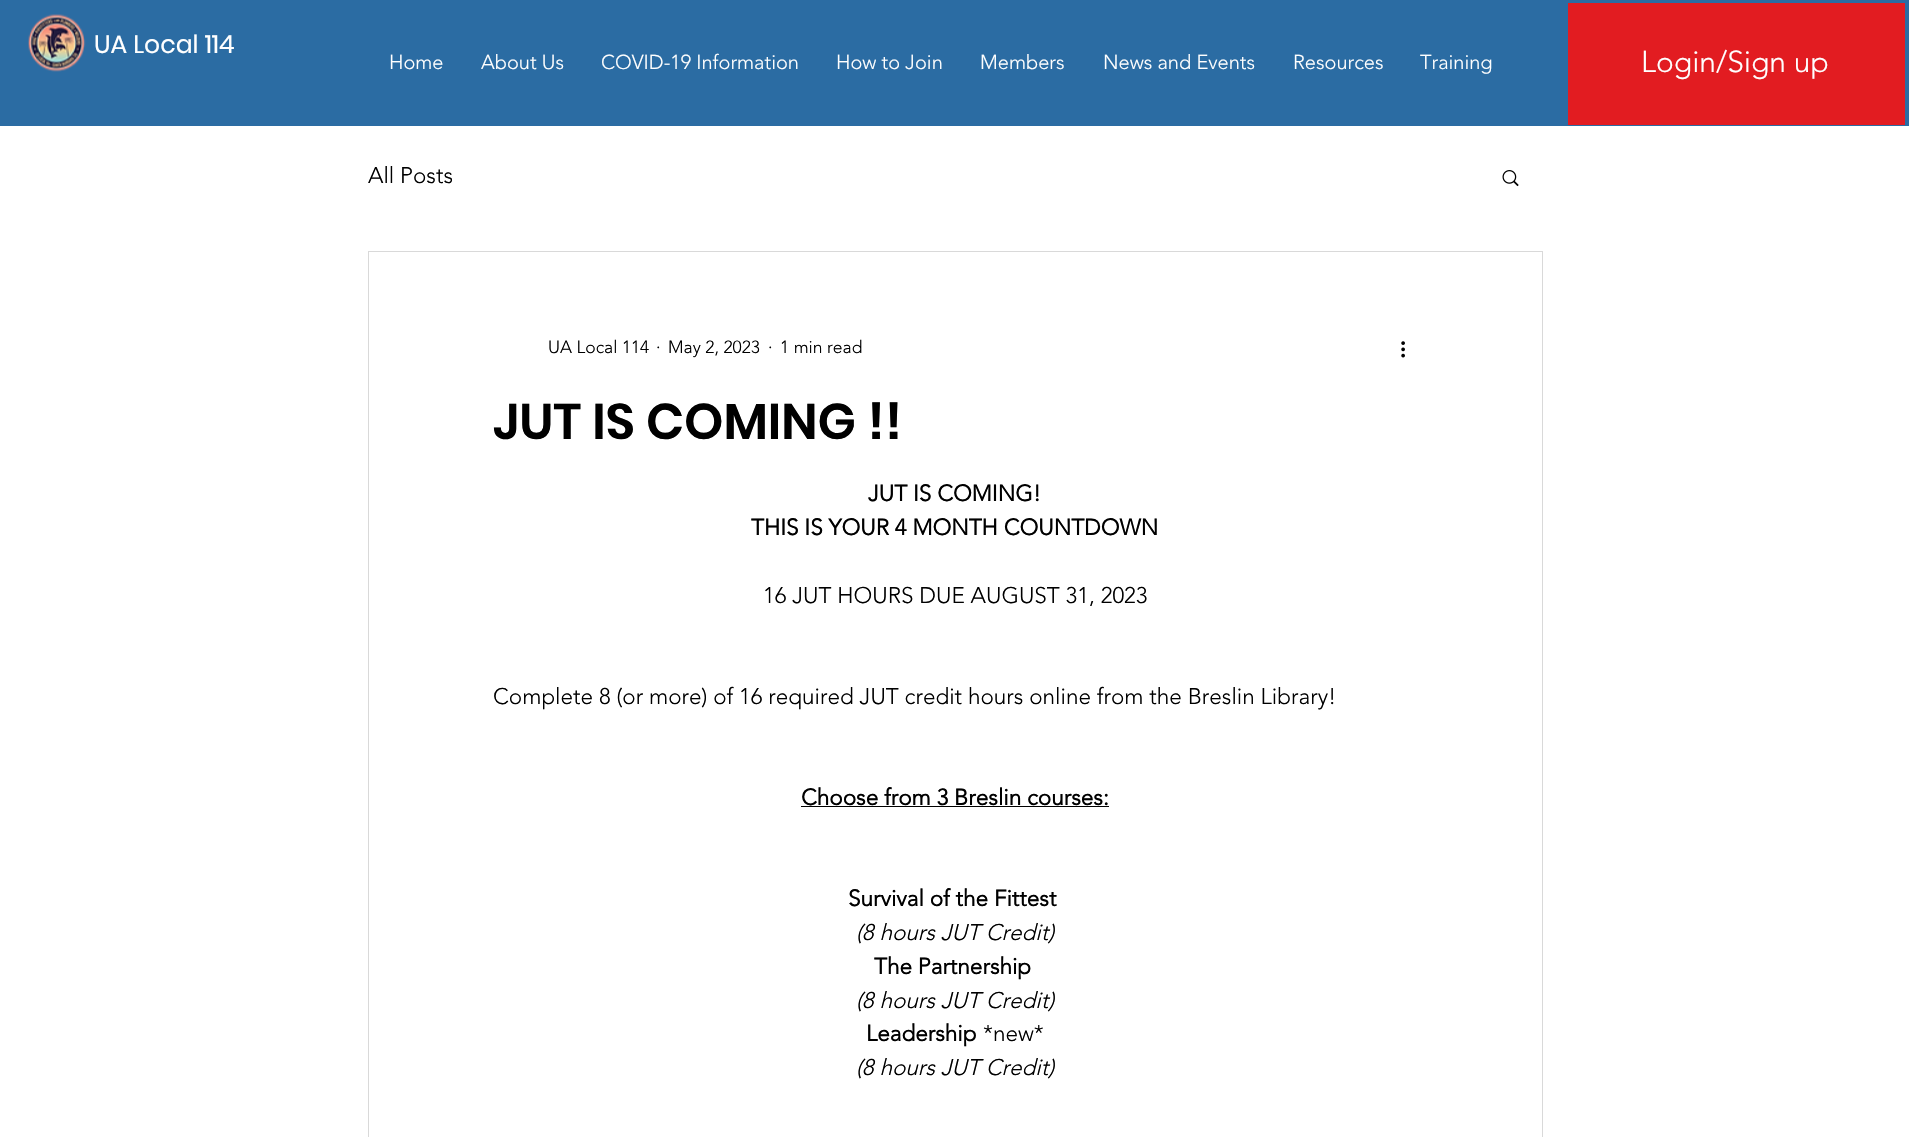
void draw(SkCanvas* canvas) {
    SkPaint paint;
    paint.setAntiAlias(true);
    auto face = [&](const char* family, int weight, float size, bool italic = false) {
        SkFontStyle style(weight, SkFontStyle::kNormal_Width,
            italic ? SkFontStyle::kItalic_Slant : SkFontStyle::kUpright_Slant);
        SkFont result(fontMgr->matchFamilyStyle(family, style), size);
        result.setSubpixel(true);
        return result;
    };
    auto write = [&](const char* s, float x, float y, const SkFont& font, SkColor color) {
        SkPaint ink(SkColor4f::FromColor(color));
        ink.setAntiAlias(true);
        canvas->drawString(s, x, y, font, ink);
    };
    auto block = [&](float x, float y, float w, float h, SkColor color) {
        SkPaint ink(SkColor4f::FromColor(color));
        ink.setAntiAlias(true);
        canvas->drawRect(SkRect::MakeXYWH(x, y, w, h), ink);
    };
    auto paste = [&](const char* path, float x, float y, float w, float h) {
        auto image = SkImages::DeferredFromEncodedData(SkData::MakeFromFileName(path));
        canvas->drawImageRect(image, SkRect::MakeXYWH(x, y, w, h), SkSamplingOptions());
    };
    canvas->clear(SK_ColorWHITE);
    block(0, 0, 1909, 126, SkColorSetRGB(43, 108, 163));
    paste("pic1.png", 28, 14, 58, 58);
    auto kFont1 = face("Poppins", 400, 25);
    write("UA Local 114", 94, 53, kFont1, SK_ColorWHITE);
    auto kFont2 = face("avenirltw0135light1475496", 300, 20);
    write("Home", 389, 69, kFont2, SK_ColorWHITE);
    write("About Us", 481, 69, kFont2, SK_ColorWHITE);
    write("COVID-19 Information", 601, 69, kFont2, SK_ColorWHITE);
    write("How to Join", 836, 69, kFont2, SK_ColorWHITE);
    write("Members", 980, 69, kFont2, SK_ColorWHITE);
    write("News and Events", 1103, 69, kFont2, SK_ColorWHITE);
    write("Resources", 1293, 69, kFont2, SK_ColorWHITE);
    write("Training", 1420, 69, kFont2, SK_ColorWHITE);
    block(1568, 3, 337, 122, SkColorSetRGB(226, 28, 33));
    auto kFont3 = face("avenirltw0135light1475496", 300, 30);
    write("Login/Sign up", 1641, 72, kFont3, SK_ColorWHITE);
    auto kFont4 = face("avenirltw0135light1475496", 300, 22.5f);
    write("All Posts", 368, 183, kFont4, SK_ColorBLACK);
    paste("pic2.png", 1502, 170, 17, 17);
    paint.setStyle(SkPaint::kStroke_Style);
    paint.setStrokeWidth(1);
    paint.setColor(SkColorSetRGB(217, 217, 217));
    canvas->drawRect(SkRect::MakeXYWH(368.5f, 251.5f, 1174, 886), paint);
    auto kFont5 = face("avenirltw0135light1475496", 300, 17.5f);
    write("UA Local 114", 548, 353, kFont5, SK_ColorBLACK);
    write("·", 656, 353, kFont5, SK_ColorBLACK);
    write("May 2, 2023", 668, 353, kFont5, SK_ColorBLACK);
    write("·", 768, 353, kFont5, SK_ColorBLACK);
    write("1 min read", 780, 353, kFont5, SK_ColorBLACK);
    paste("pic3.png", 1401, 341, 4, 17);
    auto kFont6 = face("Poppins", 600, 50);
    write("JUT IS COMING !!", 493, 439, kFont6, SK_ColorBLACK);
    auto kFont7 = face("avenirltw0135light1475496", 700, 22.5f);
    write("JUT IS COMING!", 868, 501, kFont7, SK_ColorBLACK);
    write("THIS IS YOUR 4 MONTH COUNTDOWN", 751, 535, kFont7, SK_ColorBLACK);
    write("16 JUT HOURS DUE AUGUST 31, 2023", 763, 603, kFont4, SK_ColorBLACK);
    write("Complete 8 (or more) of 16 required JUT credit hours online from the Breslin Library!", 493, 704, kFont4, SK_ColorBLACK);
    write("Choose from 3 Breslin courses:", 801, 805, kFont7, SK_ColorBLACK);
    block(801, 806, 308, 1, SK_ColorBLACK);
    write("Survival of the Fittest", 848, 906, kFont7, SK_ColorBLACK);
    auto kFont8 = face("avenirltw0135light1475496", 300, 22.5f, true);
    write("(8 hours JUT Credit)", 856, 940, kFont8, SK_ColorBLACK);
    write("The Partnership", 874, 974, kFont7, SK_ColorBLACK);
    write("(8 hours JUT Credit)", 856, 1008, kFont8, SK_ColorBLACK);
    write("Leadership", 866, 1041, kFont7, SK_ColorBLACK);
    write("*new*", 983, 1041, kFont4, SK_ColorBLACK);
    write("(8 hours JUT Credit)", 856, 1075, kFont8, SK_ColorBLACK);
}
